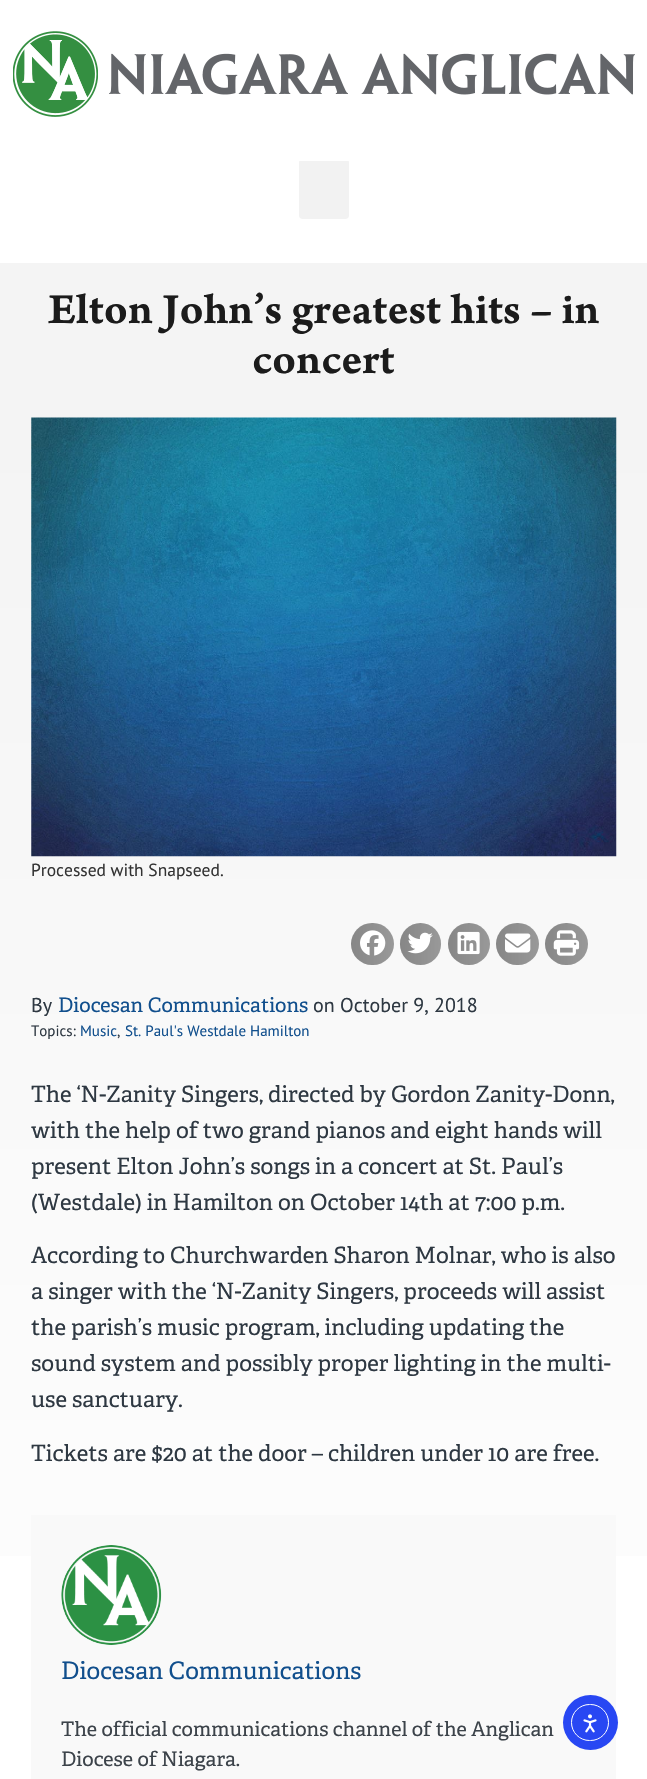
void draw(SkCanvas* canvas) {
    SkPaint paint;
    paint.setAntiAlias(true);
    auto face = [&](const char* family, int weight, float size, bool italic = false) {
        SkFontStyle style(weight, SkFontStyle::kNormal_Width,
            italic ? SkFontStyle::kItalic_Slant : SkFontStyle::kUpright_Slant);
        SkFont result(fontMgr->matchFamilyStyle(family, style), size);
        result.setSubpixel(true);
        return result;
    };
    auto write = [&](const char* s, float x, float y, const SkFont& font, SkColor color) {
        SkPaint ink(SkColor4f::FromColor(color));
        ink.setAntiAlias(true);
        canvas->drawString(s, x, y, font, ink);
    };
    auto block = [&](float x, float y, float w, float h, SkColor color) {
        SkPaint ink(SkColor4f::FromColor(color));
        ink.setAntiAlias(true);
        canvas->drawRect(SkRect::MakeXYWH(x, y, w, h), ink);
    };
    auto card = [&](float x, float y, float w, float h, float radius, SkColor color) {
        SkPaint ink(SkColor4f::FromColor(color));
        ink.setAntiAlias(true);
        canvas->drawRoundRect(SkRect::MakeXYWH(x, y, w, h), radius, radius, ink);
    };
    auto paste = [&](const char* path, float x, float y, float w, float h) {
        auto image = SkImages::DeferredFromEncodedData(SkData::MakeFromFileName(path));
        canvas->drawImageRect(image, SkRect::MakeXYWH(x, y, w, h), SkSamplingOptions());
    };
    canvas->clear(SK_ColorWHITE);
    paste("pic1.png", 13, 31, 622, 86);
    canvas->save();
    canvas->clipRect(SkRect::MakeXYWH(13, 161, 622, 89));
    card(299, 159, 50, 60, 4, SkColorSetRGB(242, 242, 242));
    canvas->restore();
    block(0, 263, 647, 142, SkColorSetRGB(244, 244, 244));
    auto kFont1 = face("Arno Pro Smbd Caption", 600, 45);
    write("Elton John’s greatest hits – in", 48, 323, kFont1, SkColorSetRGB(27, 27, 27));
    write("concert", 252, 373, kFont1, SkColorSetRGB(27, 27, 27));
    {
        const SkColor colors[] = {SkColorSetRGB(244, 244, 244), SK_ColorWHITE};
        const float stops[] = {0, 1};
        const SkPoint ends[] = {{324, 405}, {324, 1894}};
        paint.setShader(SkGradientShader::MakeLinear(ends, colors, stops, 2, SkTileMode::kClamp));
        paint.setAlpha(255);
    }
    canvas->drawRect(SkRect::MakeXYWH(0, 405, 647, 1151), paint);
    paste("pic2.png", 31, 417, 586, 440);
    auto kFont2 = face("PT Sans", 400, 17.5f);
    write("Processed with Snapseed.", 31, 876, kFont2, SkColorSetRGB(51, 51, 51));
    card(351, 923, 43, 42, 21, SkColorSetRGB(153, 153, 153));
    {
        const SkColor colors[] = {SkColorSetARGB(31, 0, 0, 0), SkColorSetARGB(0, 0, 0, 0)};
        const float stops[] = {0, 1};
        const SkPoint ends[] = {{351, 944}, {394, 944}};
        paint.setShader(SkGradientShader::MakeLinear(ends, colors, stops, 2, SkTileMode::kClamp));
        paint.setAlpha(255);
    }
    canvas->drawRoundRect(SkRect::MakeXYWH(351, 923, 43, 42), 21, 21, paint);
    paste("pic3.png", 360, 930, 26, 26);
    card(400, 923, 41, 42, 20.5f, SkColorSetRGB(153, 153, 153));
    {
        const SkColor colors[] = {SkColorSetARGB(31, 0, 0, 0), SkColorSetARGB(0, 0, 0, 0)};
        const float stops[] = {0, 1};
        const SkPoint ends[] = {{400, 944}, {441, 944}};
        paint.setShader(SkGradientShader::MakeLinear(ends, colors, stops, 2, SkTileMode::kClamp));
        paint.setAlpha(255);
    }
    canvas->drawRoundRect(SkRect::MakeXYWH(400, 923, 41, 42), 20.5f, 20.5f, paint);
    paste("pic4.png", 407, 932, 26, 22);
    paint.setShader(nullptr);
    paint.setColor(SkColorSetRGB(153, 153, 153));
    canvas->drawCircle(469, 944, 21, paint);
    {
        const SkColor colors[] = {SkColorSetARGB(31, 0, 0, 0), SkColorSetARGB(0, 0, 0, 0)};
        const float stops[] = {0, 1};
        const SkPoint ends[] = {{448, 944}, {490, 944}};
        paint.setShader(SkGradientShader::MakeLinear(ends, colors, stops, 2, SkTileMode::kClamp));
        paint.setAlpha(255);
    }
    canvas->drawCircle(469, 944, 21, paint);
    paste("pic5.png", 457, 931, 23, 24);
    card(496, 923, 43, 42, 21, SkColorSetRGB(153, 153, 153));
    {
        const SkColor colors[] = {SkColorSetARGB(31, 0, 0, 0), SkColorSetARGB(0, 0, 0, 0)};
        const float stops[] = {0, 1};
        const SkPoint ends[] = {{496, 944}, {539, 944}};
        paint.setShader(SkGradientShader::MakeLinear(ends, colors, stops, 2, SkTileMode::kClamp));
        paint.setAlpha(255);
    }
    canvas->drawRoundRect(SkRect::MakeXYWH(496, 923, 43, 42), 21, 21, paint);
    paste("pic6.png", 505, 933, 26, 20);
    card(545, 923, 43, 42, 21, SkColorSetRGB(153, 153, 153));
    {
        const SkColor colors[] = {SkColorSetARGB(31, 0, 0, 0), SkColorSetARGB(0, 0, 0, 0)};
        const float stops[] = {0, 1};
        const SkPoint ends[] = {{545, 944}, {588, 944}};
        paint.setShader(SkGradientShader::MakeLinear(ends, colors, stops, 2, SkTileMode::kClamp));
        paint.setAlpha(255);
    }
    canvas->drawRoundRect(SkRect::MakeXYWH(545, 923, 43, 42), 21, 21, paint);
    paste("pic7.png", 553, 930, 27, 26);
    auto kFont3 = face("PT Sans", 400, 20);
    write("By", 31, 1012, kFont3, SkColorSetRGB(46, 56, 66));
    auto kFont4 = face("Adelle", 400, 20);
    write("Diocesan Communications", 58, 1012, kFont4, SkColorSetRGB(17, 79, 141));
    write("on October 9, 2018", 313, 1012, kFont3, SkColorSetRGB(46, 56, 66));
    auto kFont5 = face("PT Sans", 400, 15);
    write("Topics:", 31, 1036, kFont5, SkColorSetRGB(46, 56, 66));
    write("Music", 80, 1036, kFont5, SkColorSetRGB(17, 79, 141));
    write(",", 117, 1036, kFont5, SkColorSetRGB(46, 56, 66));
    write("St. Paul's Westdale Hamilton", 125, 1036, kFont5, SkColorSetRGB(17, 79, 141));
    auto kFont6 = face("Adelle", 400, 22.5f);
    write("The ‘N-Zanity Singers, directed by Gordon Zanity-Donn,", 31, 1102, kFont6, SkColorSetRGB(46, 56, 66));
    write("with the help of two grand pianos and eight hands will", 31, 1138, kFont6, SkColorSetRGB(46, 56, 66));
    write("present Elton John’s songs in a concert at St. Paul’s", 31, 1174, kFont6, SkColorSetRGB(46, 56, 66));
    write("(Westdale) in Hamilton on October 14th at 7:00 p.m.", 31, 1210, kFont6, SkColorSetRGB(46, 56, 66));
    write("According to Churchwarden Sharon Molnar, who is also", 31, 1263, kFont6, SkColorSetRGB(46, 56, 66));
    write("a singer with the ‘N-Zanity Singers, proceeds will assist", 31, 1299, kFont6, SkColorSetRGB(46, 56, 66));
    write("the parish’s music program, including updating the", 31, 1335, kFont6, SkColorSetRGB(46, 56, 66));
    write("sound system and possibly proper lighting in the multi-", 31, 1371, kFont6, SkColorSetRGB(46, 56, 66));
    write("use sanctuary.", 31, 1407, kFont6, SkColorSetRGB(46, 56, 66));
    write("Tickets are $20 at the door – children under 10 are free.", 31, 1461, kFont6, SkColorSetRGB(46, 56, 66));
    block(31, 1515, 585, 264, SkColorSetRGB(249, 249, 249));
    paste("pic8.png", 61, 1545, 101, 100);
    auto kFont7 = face("Adelle", 400, 24);
    write("Diocesan Communications", 61, 1679, kFont7, SkColorSetRGB(17, 79, 141));
    write("The official communications channel of the Anglican", 61, 1736, kFont4, SkColorSetRGB(60, 67, 74));
    write("Diocese of Niagara.", 61, 1766, kFont4, SkColorSetRGB(60, 67, 74));
    paint.setShader(nullptr);
    paint.setColor(SkColorSetRGB(40, 71, 243));
    canvas->drawCircle(590.5f, 1722.5f, 27.5f, paint);
    paint.setStyle(SkPaint::kStroke_Style);
    paint.setStrokeWidth(1);
    paint.setColor(SK_ColorWHITE);
    canvas->drawRoundRect(SkRect::MakeXYWH(571.5f, 1704.5f, 37, 36), 18, 18, paint);
    paste("pic9.png", 583, 1714, 14, 19);
}
